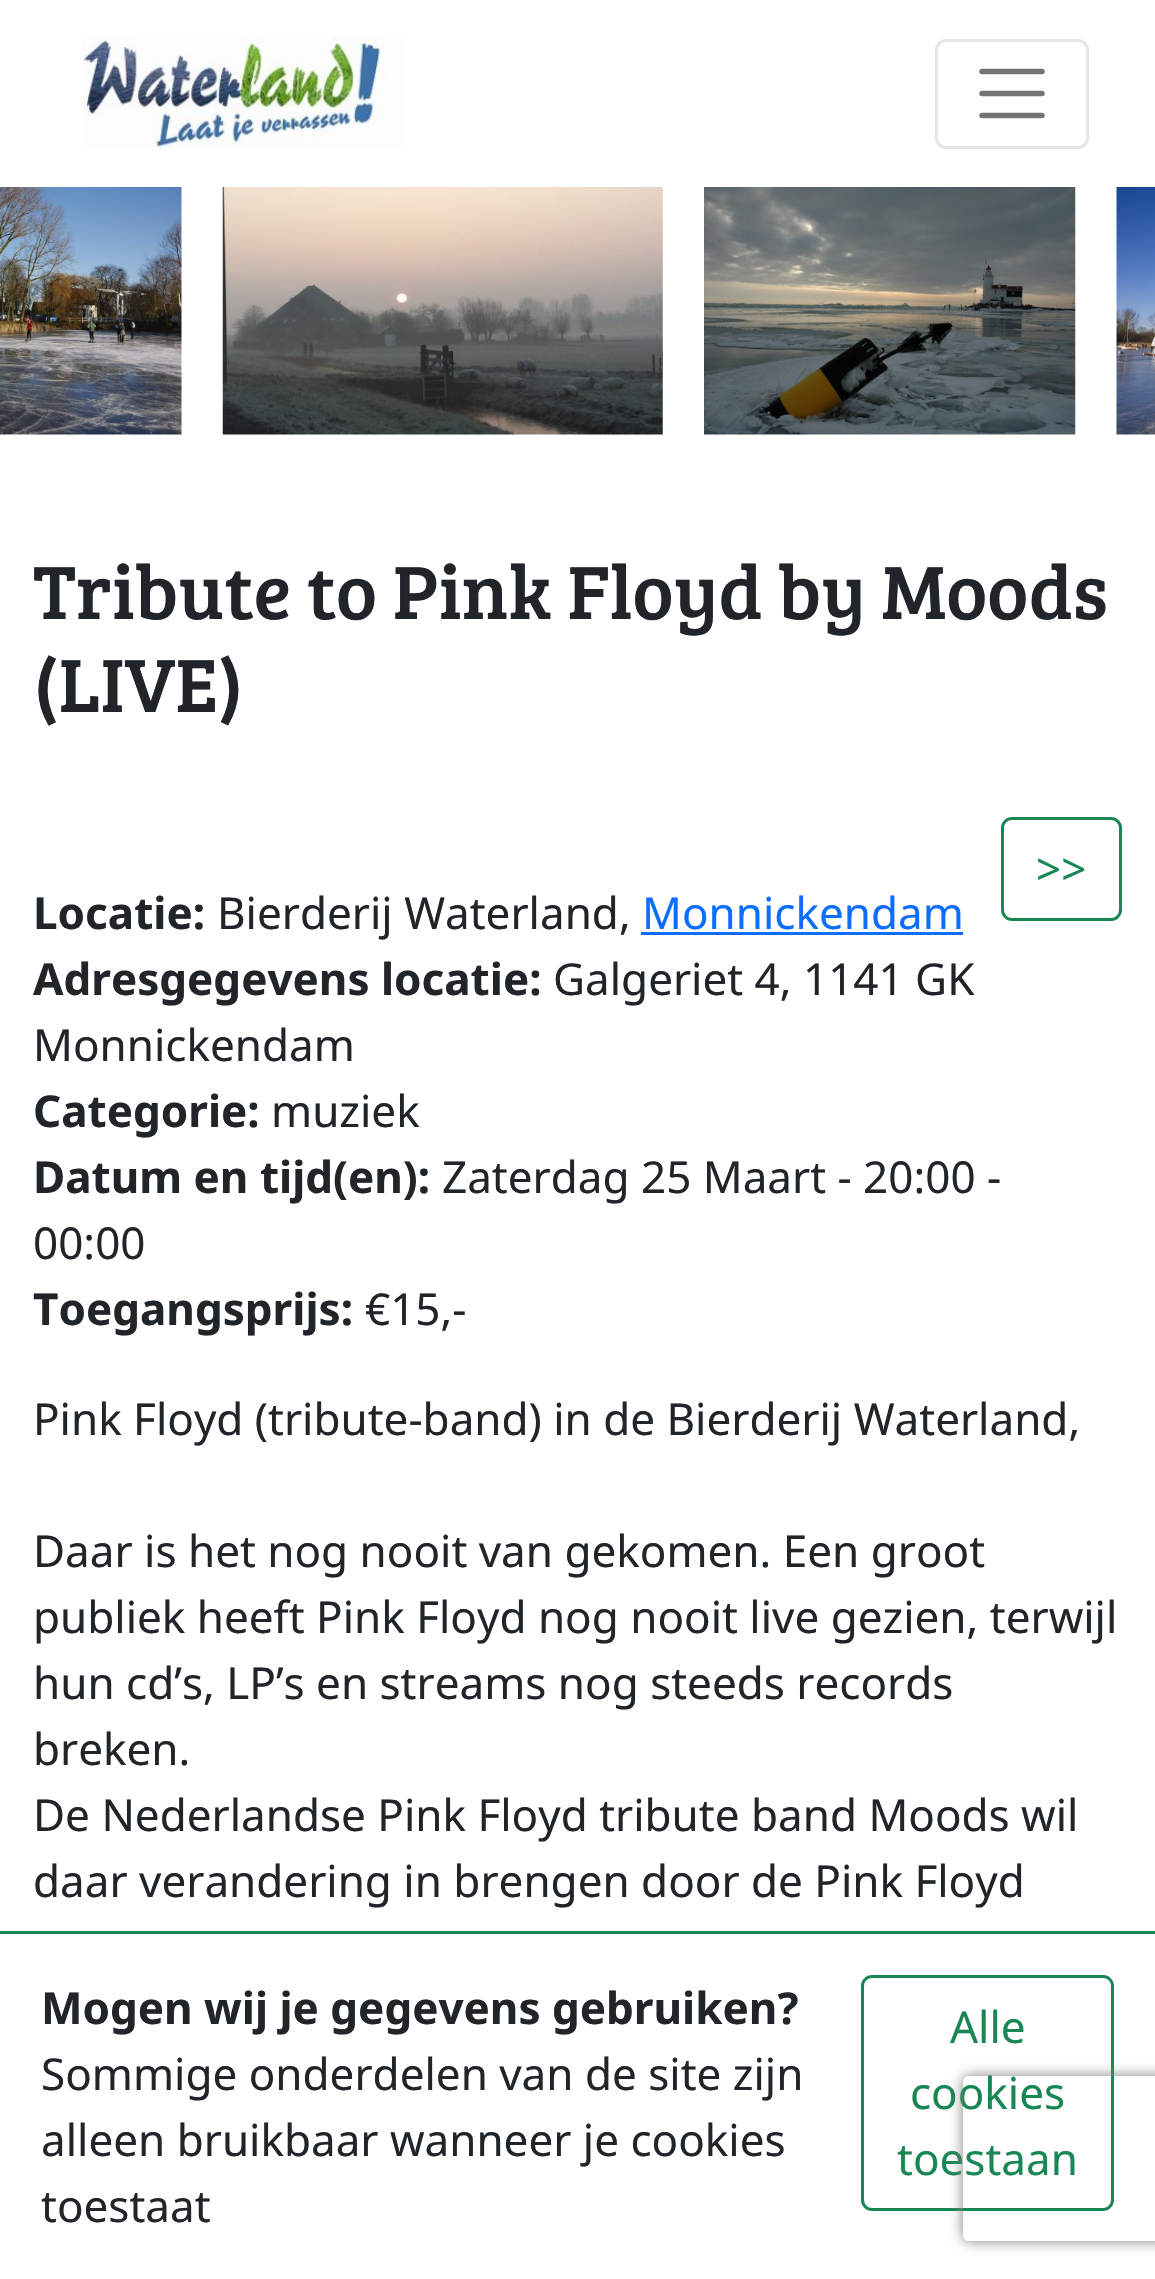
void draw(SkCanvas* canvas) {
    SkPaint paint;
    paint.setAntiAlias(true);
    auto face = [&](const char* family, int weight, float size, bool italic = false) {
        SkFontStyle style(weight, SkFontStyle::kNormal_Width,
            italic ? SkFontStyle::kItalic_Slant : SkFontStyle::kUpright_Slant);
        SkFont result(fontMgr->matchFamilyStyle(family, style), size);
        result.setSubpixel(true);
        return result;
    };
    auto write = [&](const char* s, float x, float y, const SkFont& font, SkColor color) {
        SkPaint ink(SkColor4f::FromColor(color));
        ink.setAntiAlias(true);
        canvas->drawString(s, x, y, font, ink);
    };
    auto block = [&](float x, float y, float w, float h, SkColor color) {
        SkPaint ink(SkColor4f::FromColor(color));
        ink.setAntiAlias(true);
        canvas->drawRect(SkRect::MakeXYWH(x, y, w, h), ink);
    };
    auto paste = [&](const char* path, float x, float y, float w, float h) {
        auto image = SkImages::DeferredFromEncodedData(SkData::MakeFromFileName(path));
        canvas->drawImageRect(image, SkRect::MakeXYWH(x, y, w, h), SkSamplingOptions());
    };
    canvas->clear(SK_ColorWHITE);
    paste("pic1.png", 83, 36, 321, 115);
    paint.setStyle(SkPaint::kStroke_Style);
    paint.setStrokeWidth(3);
    paint.setColor(SkColorSetRGB(230, 230, 230));
    canvas->drawRoundRect(SkRect::MakeXYWH(936.5f, 40.5f, 151, 107), 9.5f, 9.5f, paint);
    paint.setStrokeWidth(5.5f);
    paint.setStrokeCap(SkPaint::kRound_Cap);
    paint.setColor(SkColorSetRGB(115, 115, 115));
    canvas->drawPath(SkPathBuilder().moveTo(982, 71.5f).lineTo(1042, 71.5f).moveTo(982, 93.5f).lineTo(1042, 93.5f).moveTo(982, 115.5f).lineTo(1042, 115.5f).detach(), paint);
    paste("pic2.png", 0, 187, 182, 248);
    paste("pic3.png", 222, 187, 441, 248);
    paste("pic4.png", 704, 187, 372, 248);
    paste("pic5.png", 1116, 187, 39, 248);
    auto kFont1 = face("Bree Serif", 400, 77.8f);
    write("Tribute to Pink Floyd by Moods", 33, 619, kFont1, SkColorSetRGB(33, 37, 41));
    write("(LIVE)", 33, 712, kFont1, SkColorSetRGB(33, 37, 41));
    paint.setStrokeWidth(3);
    paint.setStrokeCap(SkPaint::kButt_Cap);
    paint.setColor(SkColorSetRGB(25, 135, 84));
    canvas->drawRoundRect(SkRect::MakeXYWH(1002.5f, 818.5f, 118, 101), 9.5f, 9.5f, paint);
    auto kFont2 = face("Noto Sans", 400, 44);
    write(">>", 1036, 885, kFont2, SkColorSetRGB(25, 135, 84));
    auto kFont3 = face("Noto Sans", 700, 44);
    write("Locatie:", 33, 929, kFont3, SkColorSetRGB(33, 37, 41));
    write("Bierderij Waterland,", 217, 929, kFont2, SkColorSetRGB(33, 37, 41));
    write("Monnickendam", 642, 929, kFont2, SkColorSetRGB(13, 110, 253));
    block(641, 932, 322, 3, SkColorSetRGB(13, 110, 253));
    write("Adresgegevens locatie:", 33, 995, kFont3, SkColorSetRGB(33, 37, 41));
    write("Galgeriet 4, 1141 GK", 553, 995, kFont2, SkColorSetRGB(33, 37, 41));
    write("Monnickendam", 33, 1061, kFont2, SkColorSetRGB(33, 37, 41));
    write("Categorie:", 33, 1127, kFont3, SkColorSetRGB(33, 37, 41));
    write("muziek", 271, 1127, kFont2, SkColorSetRGB(33, 37, 41));
    write("Datum en tijd(en):", 33, 1193, kFont3, SkColorSetRGB(33, 37, 41));
    write("Zaterdag 25 Maart - 20:00 -", 442, 1193, kFont2, SkColorSetRGB(33, 37, 41));
    write("00:00", 33, 1259, kFont2, SkColorSetRGB(33, 37, 41));
    write("Toegangsprijs:", 33, 1325, kFont3, SkColorSetRGB(33, 37, 41));
    write("€15,-", 365, 1325, kFont2, SkColorSetRGB(33, 37, 41));
    write("Pink Floyd (tribute-band) in de Bierderij Waterland,", 33, 1435, kFont2, SkColorSetRGB(33, 37, 41));
    write("Daar is het nog nooit van gekomen. Een groot", 33, 1567, kFont2, SkColorSetRGB(33, 37, 41));
    write("publiek heeft Pink Floyd nog nooit live gezien, terwijl", 33, 1633, kFont2, SkColorSetRGB(33, 37, 41));
    write("hun cd’s, LP’s en streams nog steeds records", 33, 1699, kFont2, SkColorSetRGB(33, 37, 41));
    write("breken.", 33, 1765, kFont2, SkColorSetRGB(33, 37, 41));
    write("De Nederlandse Pink Floyd tribute band Moods wil", 33, 1831, kFont2, SkColorSetRGB(33, 37, 41));
    write("daar verandering in brengen door de Pink Floyd", 33, 1897, kFont2, SkColorSetRGB(33, 37, 41));
    block(0, 1931, 1155, 3, SkColorSetRGB(25, 135, 84));
    write("Mogen wij je gegevens gebruiken?", 41, 2024, kFont3, SkColorSetRGB(33, 37, 41));
    write("Sommige onderdelen van de site zijn", 41, 2090, kFont2, SkColorSetRGB(33, 37, 41));
    write("alleen bruikbaar wanneer je cookies", 41, 2156, kFont2, SkColorSetRGB(33, 37, 41));
    write("toestaat", 41, 2222, kFont2, SkColorSetRGB(33, 37, 41));
    canvas->drawRoundRect(SkRect::MakeXYWH(862.5f, 1976.5f, 250, 233), 9.5f, 9.5f, paint);
    write("Alle", 950, 2043, kFont2, SkColorSetRGB(25, 135, 84));
    write("cookies", 910, 2109, kFont2, SkColorSetRGB(25, 135, 84));
    write("toestaan", 897, 2175, kFont2, SkColorSetRGB(25, 135, 84));
    canvas->save();
    canvas->clipPath(SkPathBuilder(SkPathFillType::kEvenOdd).moveTo(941, 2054).lineTo(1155, 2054).lineTo(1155, 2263).lineTo(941, 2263).close().moveTo(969, 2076).lineTo(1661, 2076).cubicTo(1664.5f, 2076, 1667, 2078.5f, 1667, 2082).lineTo(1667, 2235).cubicTo(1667, 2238.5f, 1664.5f, 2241, 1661, 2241).lineTo(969, 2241).cubicTo(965.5f, 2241, 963, 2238.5f, 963, 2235).lineTo(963, 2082).cubicTo(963, 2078.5f, 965.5f, 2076, 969, 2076).close().detach(), true);
    paint.setStyle(SkPaint::kFill_Style);
    paint.setColor(SkColorSetRGB(128, 128, 128));
    paint.setMaskFilter(SkMaskFilter::MakeBlur(kNormal_SkBlurStyle, 7));
    canvas->drawRoundRect(SkRect::MakeXYWH(963, 2076, 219, 165), 6, 6, paint);
    paint.setMaskFilter(nullptr);
    canvas->restore();
}
